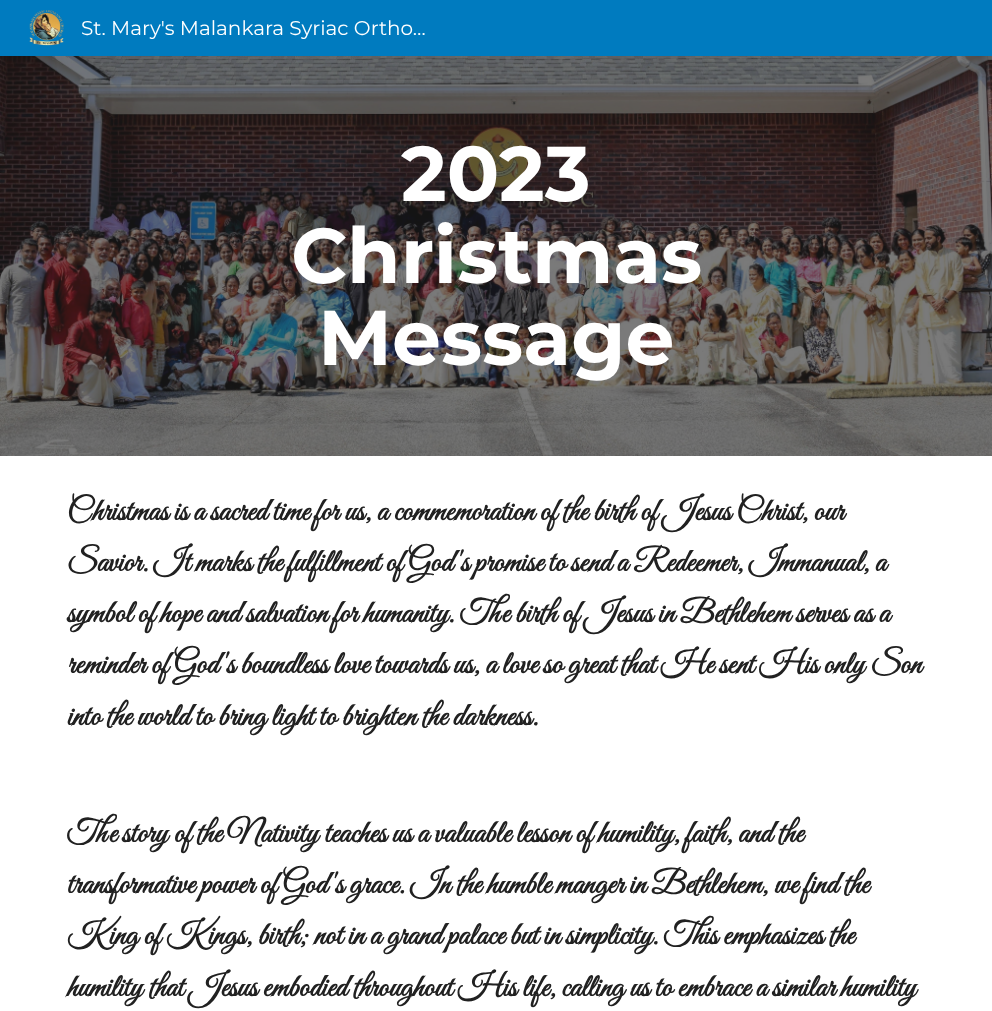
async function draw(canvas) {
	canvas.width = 992;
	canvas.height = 1011;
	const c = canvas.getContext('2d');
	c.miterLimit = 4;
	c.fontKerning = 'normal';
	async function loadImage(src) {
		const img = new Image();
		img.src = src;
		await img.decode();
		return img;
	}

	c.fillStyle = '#fff';
	c.fillRect(0, 0, 992, 1011);
	c.fillStyle = '#007bbf';
	c.fillRect(0, 0, 992, 56);
	c.drawImage(await loadImage('img1.png'), 29, 10, 35, 36);
	c.font = '20px Montserrat';
	c.fillStyle = '#fff';
	c.fillText('St. Mary\'s Malankara Syriac Ortho…', 81, 35);
	c.drawImage(await loadImage('img2.png'), 0, 56, 992, 400);
	c.font = 'bold 77.5px Montserrat';
	for (const [text, x, y] of [
		['2023', 401, 201],
		['Christmas', 291, 283],
		['Message', 318, 365],
	]) {
		c.fillText(text, x, y);
	}
	c.font = 'bold 32px Great Vibes';
	c.fillStyle = '#212121';
	c.fillText('Christmas is a sacred time for us, a commemoration of the birth of Jesus Christ, our', 67, 520);
	c.wordSpacing = '-0.2px';
	c.fillText('Savior. It marks the fulfillment of God\'s promise to send a Redeemer, Immanual, a', 67, 571);
	c.wordSpacing = '0px';
	c.fillText('symbol of hope and salvation for humanity. The birth of Jesus in Bethlehem serves as a', 67, 622);
	c.wordSpacing = '-0.1px';
	c.fillText('reminder of God\'s boundless love towards us, a love so great that He sent His only Son', 67, 673);
	c.wordSpacing = '0px';
	for (const [text, x, y] of [
		['into the world to bring light to brighten the darkness.', 67, 725],
		['The story of the Nativity teaches us a valuable lesson of humility, faith, and the', 67, 842],
		['transformative power of God\'s grace. In the humble manger in Bethlehem, we find the', 67, 893],
		['King of Kings, birth; not in a grand palace but in simplicity. This emphasizes the', 67, 944],
		['humility that Jesus embodied throughout His life, calling us to embrace a similar humility', 67, 996],
	]) {
		c.fillText(text, x, y);
	}
}

draw(document.querySelector('canvas'));
